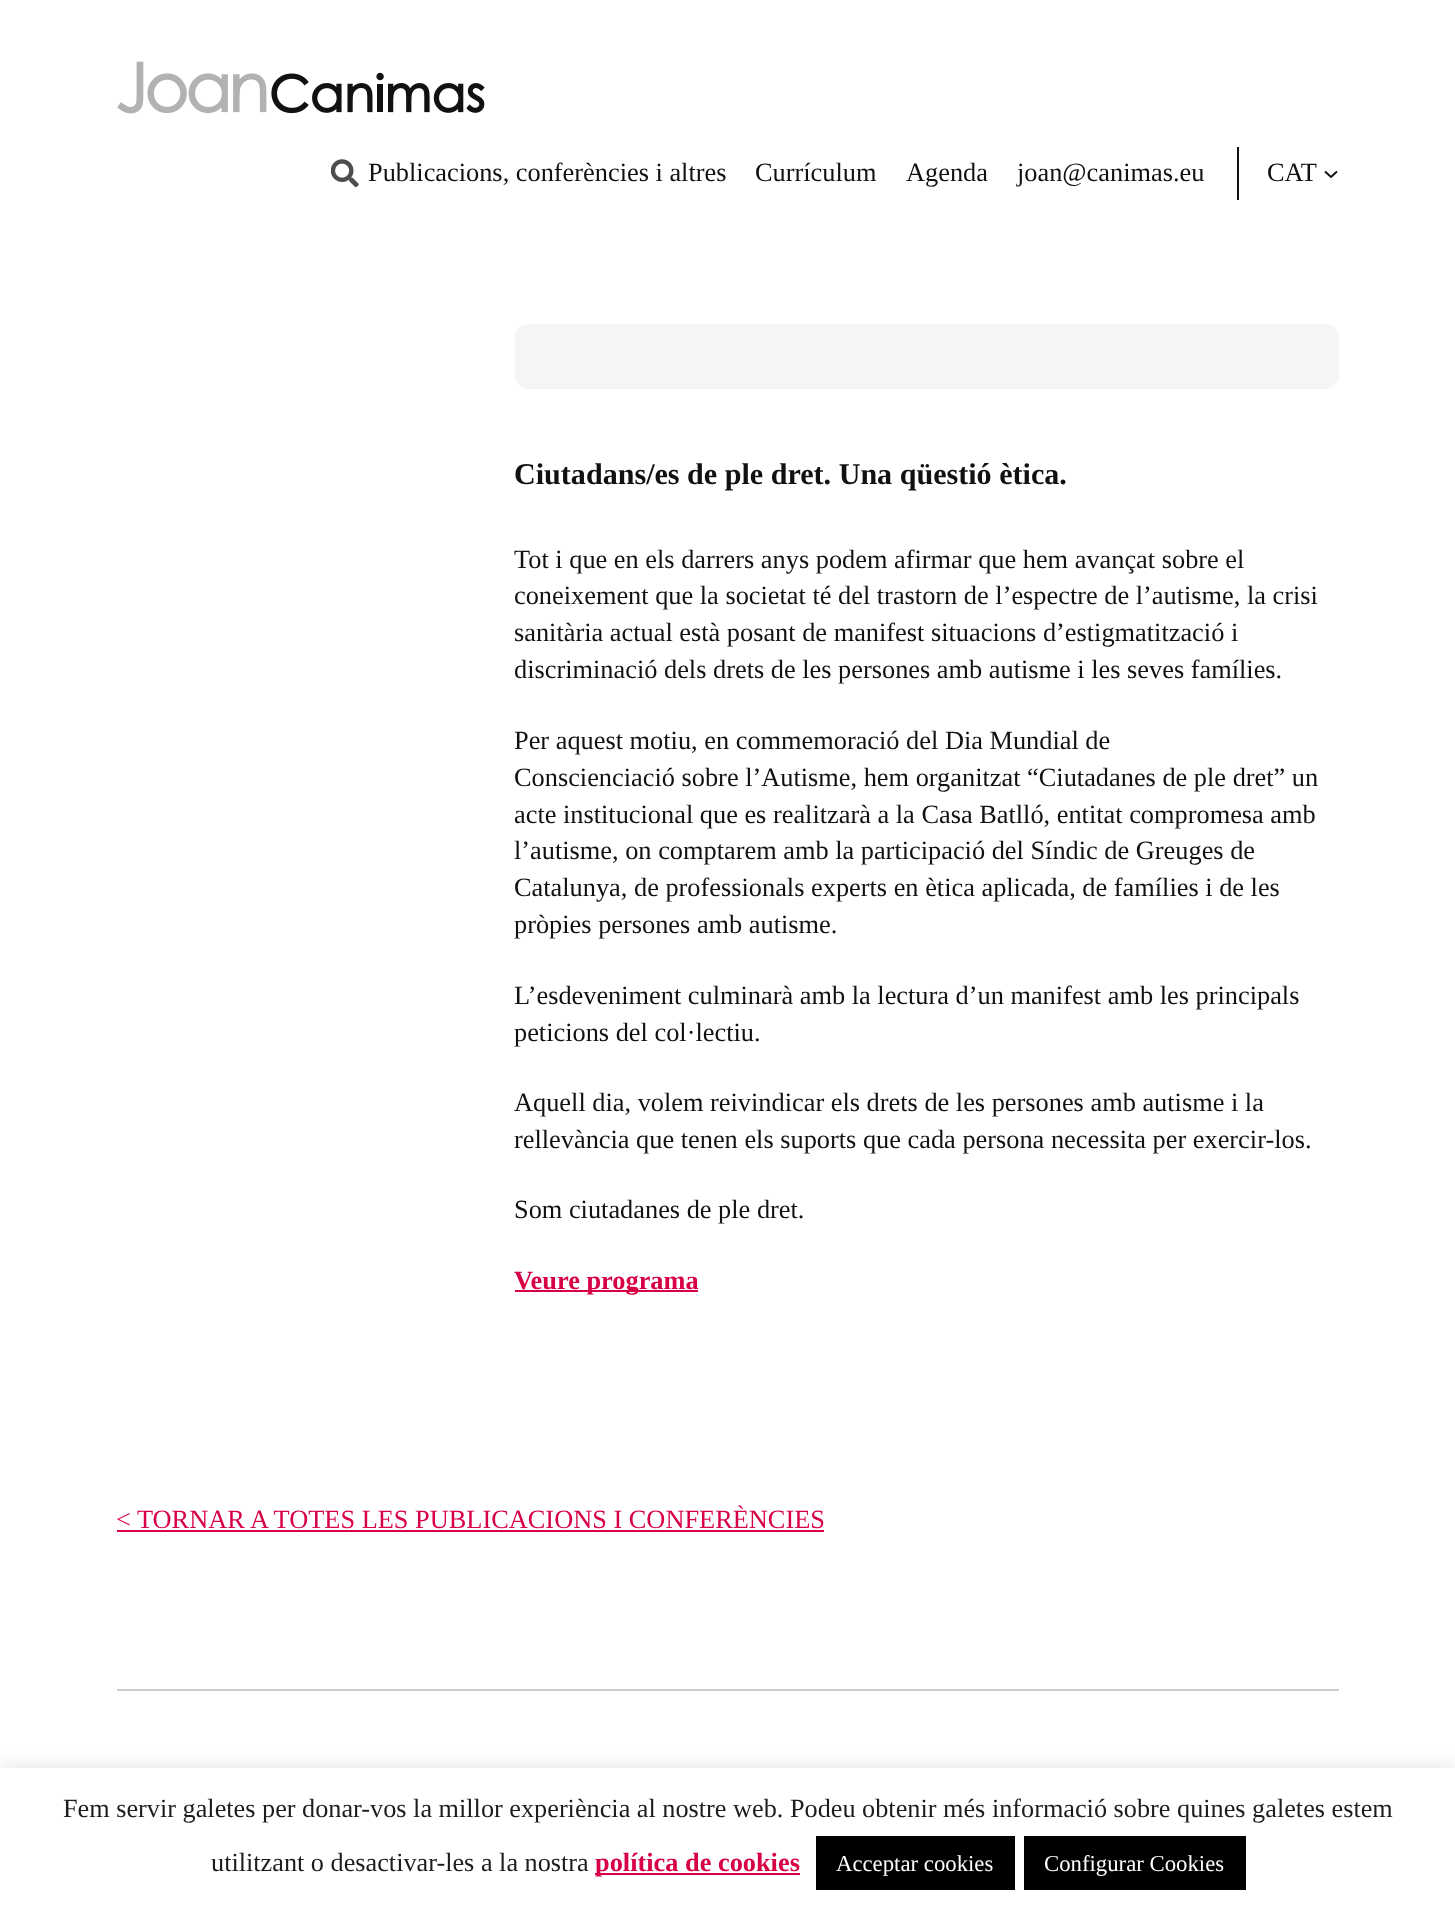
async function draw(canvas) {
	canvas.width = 1455;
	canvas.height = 1910;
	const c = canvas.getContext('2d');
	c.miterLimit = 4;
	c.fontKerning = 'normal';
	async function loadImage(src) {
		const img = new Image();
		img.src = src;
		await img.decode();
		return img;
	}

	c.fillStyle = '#fff';
	c.fillRect(0, 0, 1455, 1910);
	c.drawImage(await loadImage('img1.png'), 117, 61, 368, 53);
	c.drawImage(await loadImage('img2.png'), 331, 159, 28, 28);
	c.font = '26.35px Liberation Serif';
	c.fillStyle = '#111';
	for (const [text, x, y] of [
		['Publicacions, conferències i altres', 368, 181],
		['Currículum', 755, 181],
		['Agenda', 906, 181],
		['joan@canimas.eu', 1017, 181],
	]) {
		c.fillText(text, x, y);
	}
	c.fillRect(1237, 147, 2, 53);
	c.fillText('CAT', 1267, 181);
	c.beginPath();
	c.moveTo(1325, 171.5);
	c.lineTo(1331, 177);
	c.lineTo(1337, 171.5);
	c.strokeStyle = '#111';
	c.lineWidth = 2;
	c.stroke();
	c.fillStyle = '#f5f5f5';
	c.beginPath();
	c.roundRect(515, 324, 824, 65, 14);
	c.fill();
	c.font = 'bold 30.1px Liberation Serif';
	c.fillStyle = '#111';
	c.fillText('Ciutadans/es de ple dret. Una qüestió ètica.', 514, 484);
	c.font = '26.35px Liberation Serif';
	for (const [text, x, y] of [
		['Tot i que en els darrers anys podem afirmar que hem avançat sobre el', 514, 568],
		['coneixement que la societat té del trastorn de l’espectre de l’autisme, la crisi', 514, 604],
		['sanitària actual està posant de manifest situacions d’estigmatització i', 514, 641],
		['discriminació dels drets de les persones amb autisme i les seves famílies.', 514, 678],
		['Per aquest motiu, en commemoració del Dia Mundial de', 514, 749],
		['Conscienciació sobre l’Autisme, hem organitzat “Ciutadanes de ple dret” un', 514, 786],
		['acte institucional que es realitzarà a la Casa Batlló, entitat compromesa amb', 514, 823],
		['l’autisme, on comptarem amb la participació del Síndic de Greuges de', 514, 859],
		['Catalunya, de professionals experts en ètica aplicada, de famílies i de les', 514, 896],
		['pròpies persones amb autisme.', 514, 933],
		['L’esdeveniment culminarà amb la lectura d’un manifest amb les principals', 514, 1004],
		['peticions del col·lectiu.', 514, 1041],
		['Aquell dia, volem reivindicar els drets de les persones amb autisme i la', 514, 1111],
		['rellevància que tenen els suports que cada persona necessita per exercir-los.', 514, 1148],
		['Som ciutadanes de ple dret.', 514, 1218],
	]) {
		c.fillText(text, x, y);
	}
	c.fillStyle = '#d80044';
	c.fillRect(515, 1290, 183, 2);
	c.font = 'bold 26.35px Liberation Serif';
	c.fillText('Veure programa', 514, 1289);
	c.font = '26.35px Liberation Serif';
	c.fillText('< TORNAR A TOTES LES PUBLICACIONS I CONFERÈNCIES', 116, 1528);
	c.fillRect(117, 1530, 707, 2);
	c.fillStyle = '#ccc';
	c.fillRect(117, 1689, 1222, 2);
	c.fillStyle = '#acabab4d';
	c.filter = 'blur(9px)';
	c.beginPath();
	c.rect(0, 1766, 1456, 143);
	c.fill();
	c.filter = 'none';
	c.fillStyle = '#fff';
	c.fillRect(0, 1768, 1455, 142);
	c.font = '26.25px Liberation Serif';
	c.fillStyle = '#1d1d1d';
	c.fillText('Fem servir galetes per donar-vos la millor experiència al nostre web. Podeu obtenir més informació sobre quines galetes estem', 63, 1817);
	c.fillText('utilitzant o desactivar-les a la nostra', 211, 1871);
	c.fillStyle = '#d80044';
	c.fillRect(595, 1873, 205, 2);
	c.font = 'bold 26.35px Liberation Serif';
	c.fillText('política de cookies', 595, 1871);
	c.fillStyle = '#000';
	c.fillRect(816, 1836, 199, 54);
	c.font = '22.75px Liberation Serif';
	c.fillStyle = '#fff';
	c.fillText('Acceptar cookies', 836, 1871);
	c.fillStyle = '#000';
	c.fillRect(1024, 1836, 222, 54);
	c.fillStyle = '#fff';
	c.fillText('Configurar Cookies', 1044, 1871);
}

draw(document.querySelector('canvas'));
